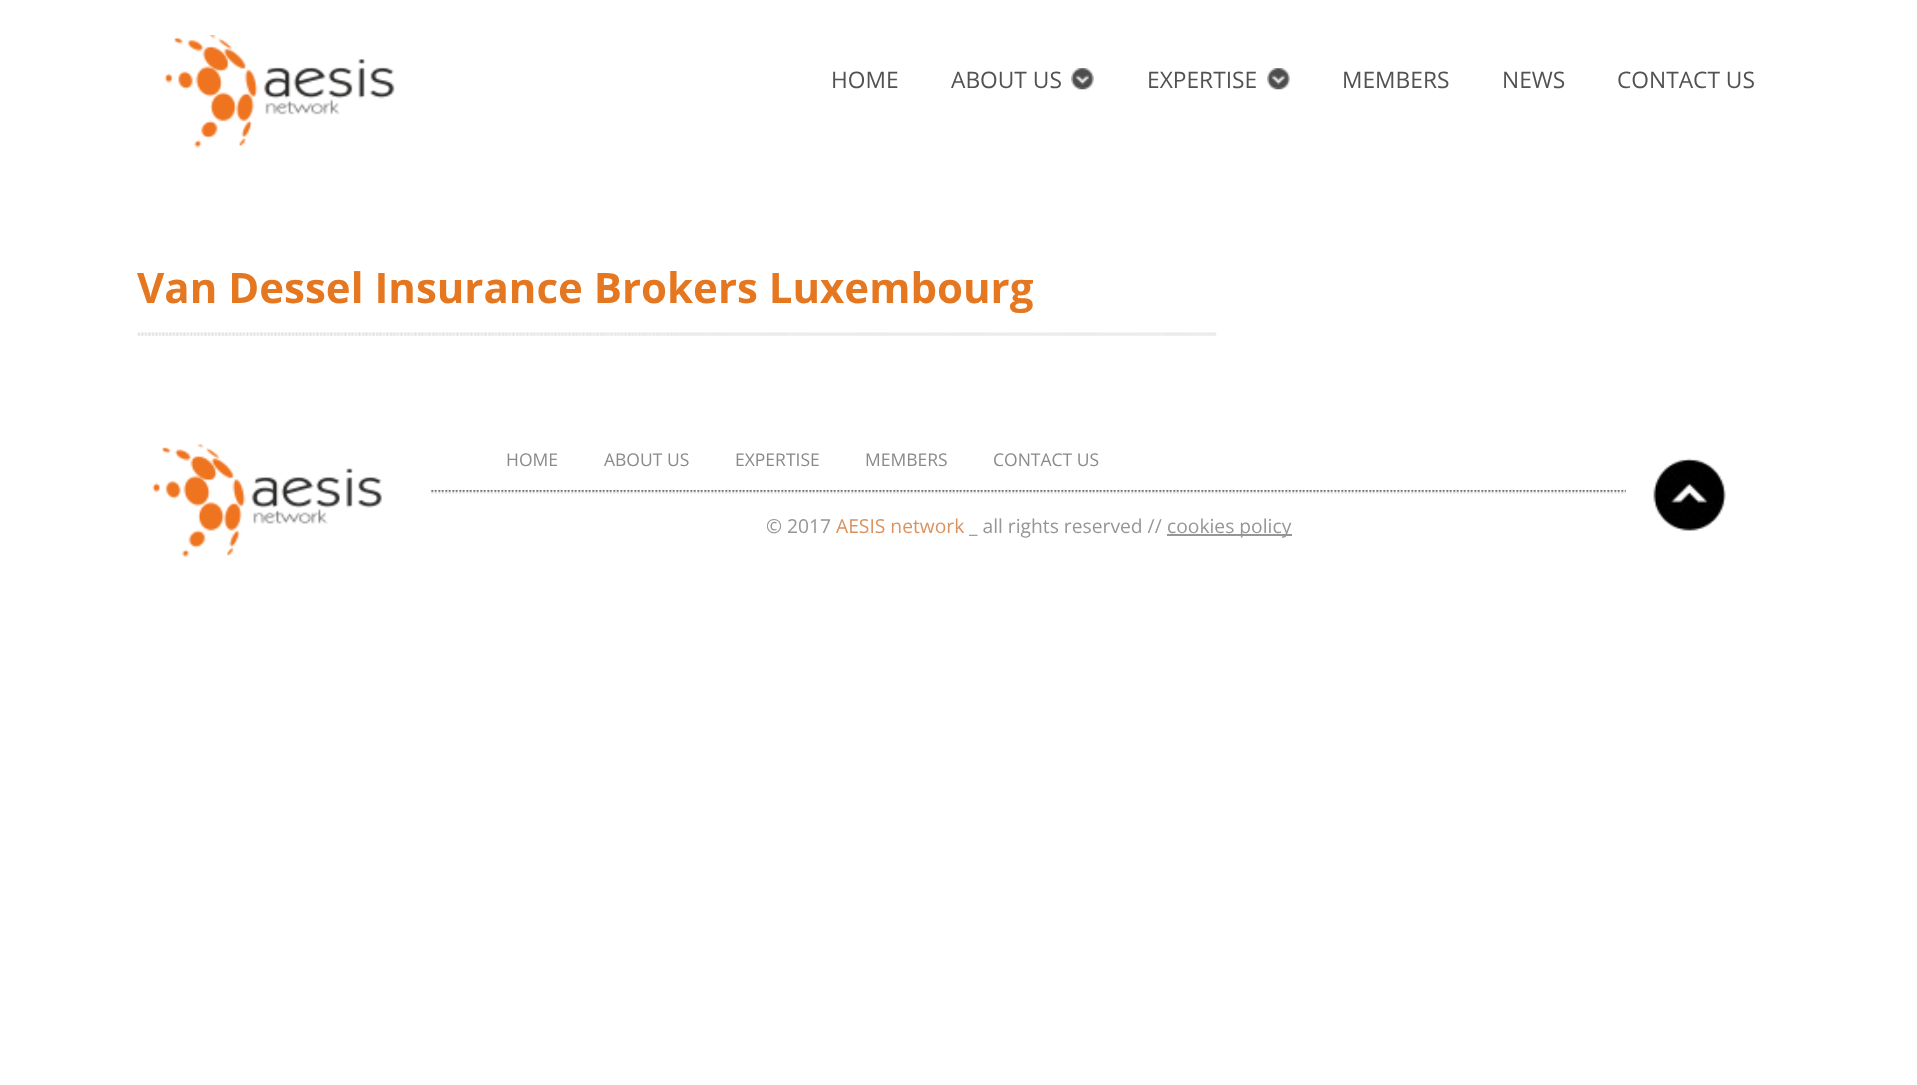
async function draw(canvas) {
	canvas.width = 1917;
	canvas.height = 1085;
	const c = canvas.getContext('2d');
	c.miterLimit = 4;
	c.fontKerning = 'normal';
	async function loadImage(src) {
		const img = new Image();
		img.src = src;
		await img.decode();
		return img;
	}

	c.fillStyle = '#fff';
	c.fillRect(0, 0, 1917, 1085);
	c.drawImage(await loadImage('img1.png'), 164, 35, 231, 113);
	c.font = '22.75px Open Sans';
	c.fillStyle = '#525252';
	c.fillText('HOME', 831, 88);
	c.fillText('ABOUT US', 951, 88);
	c.drawImage(await loadImage('img2.png'), 1071, 68, 23, 22);
	c.fillText('EXPERTISE', 1147, 88);
	c.drawImage(await loadImage('img3.png'), 1267, 68, 23, 22);
	for (const [text, x, y] of [
		['MEMBERS', 1342, 88],
		['NEWS', 1502, 88],
		['CONTACT US', 1617, 88],
	]) {
		c.fillText(text, x, y);
	}
	c.drawImage(await loadImage('img4.png'), 137, 332, 1080, 4);
	c.font = 'bold 42px Open Sans';
	c.fillStyle = '#e57720';
	c.fillText('Van Dessel Insurance Brokers Luxembourg', 137, 303);
	c.drawImage(await loadImage('img5.png'), 152, 444, 230, 113);
	c.drawImage(await loadImage('img6.png'), 431, 490, 1195, 4);
	c.font = '17.5px Open Sans';
	c.fillStyle = '#8b898a';
	for (const [text, x, y] of [
		['HOME', 506, 466],
		['ABOUT US', 604, 466],
		['EXPERTISE', 735, 466],
		['MEMBERS', 865, 466],
		['CONTACT US', 993, 466],
	]) {
		c.fillText(text, x, y);
	}
	c.font = '19.25px Open Sans';
	c.fillStyle = '#969696';
	c.fillText('© 2017', 766, 533);
	c.fillStyle = '#da935f';
	c.fillText('AESIS network', 836, 533);
	c.fillStyle = '#969696';
	c.fillText('_ all rights reserved //', 969, 533);
	c.fillRect(1167, 534, 125, 2);
	c.fillText('cookies policy', 1167, 533);
	c.drawImage(await loadImage('img7.png'), 1653, 458, 73, 73);
}

draw(document.querySelector('canvas'));
